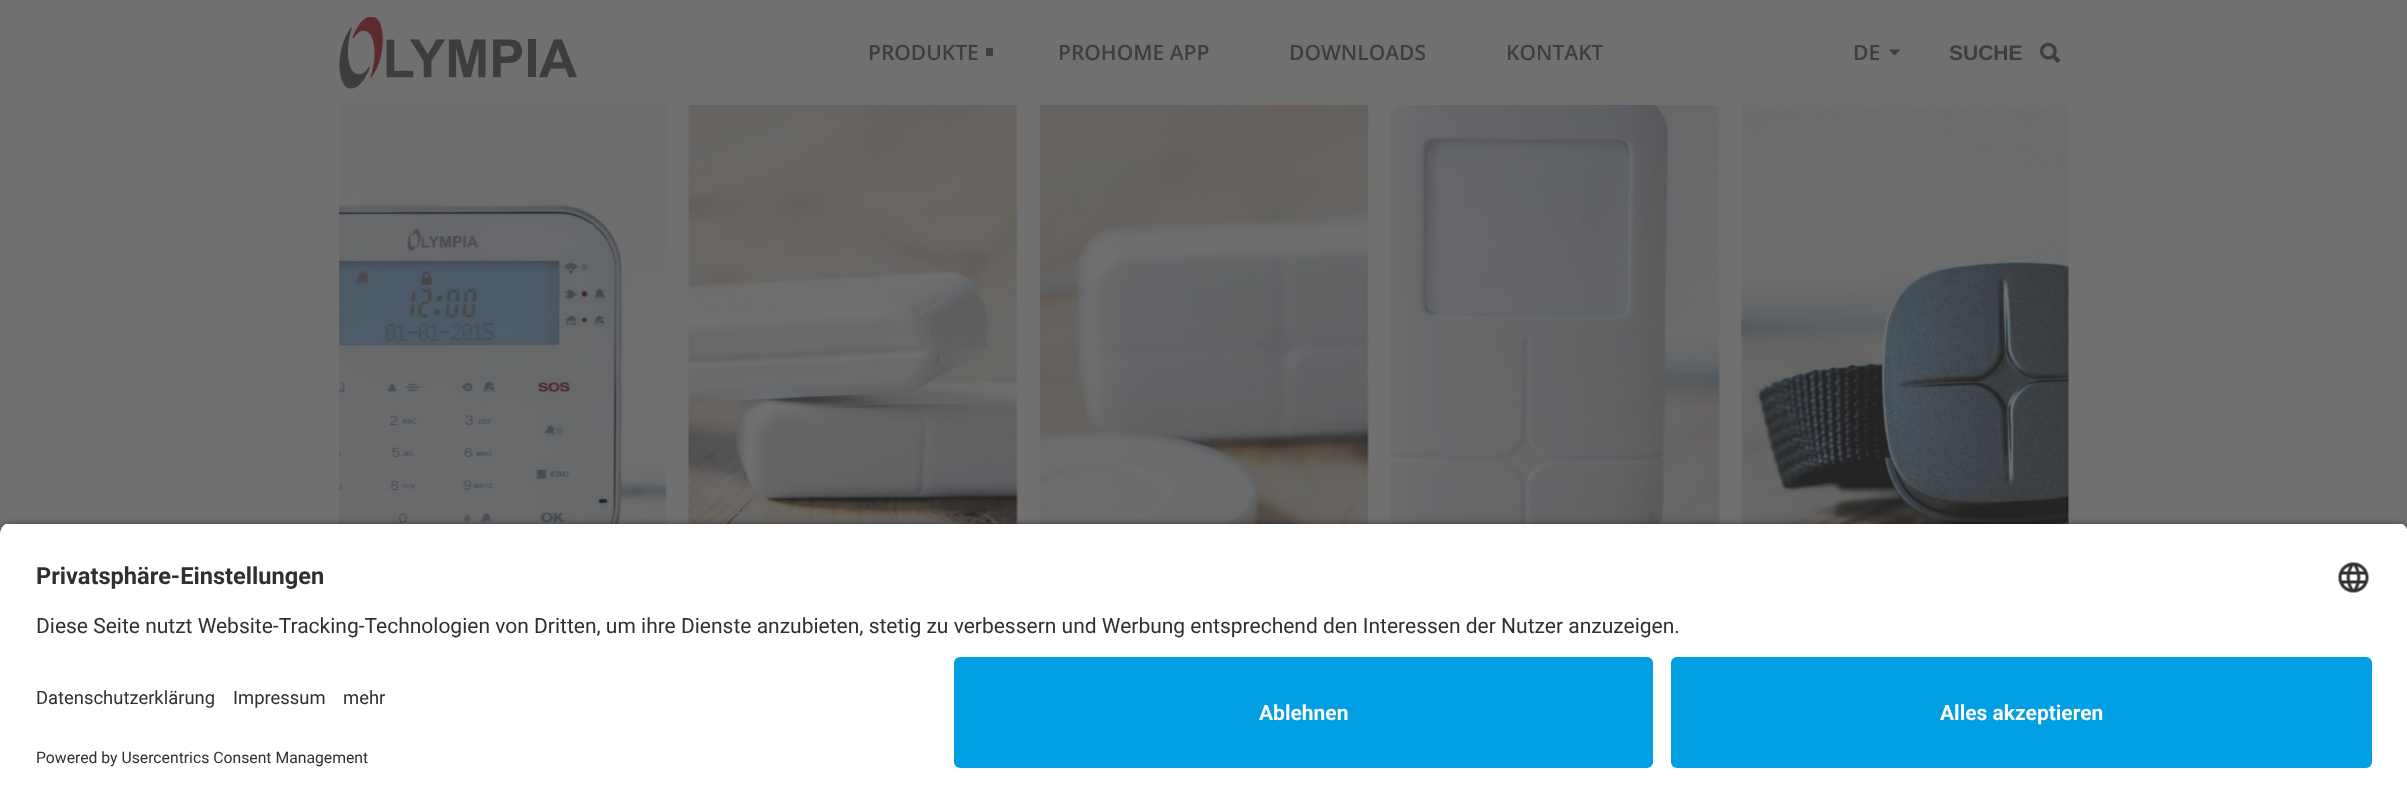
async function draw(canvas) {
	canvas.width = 2407;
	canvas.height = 803;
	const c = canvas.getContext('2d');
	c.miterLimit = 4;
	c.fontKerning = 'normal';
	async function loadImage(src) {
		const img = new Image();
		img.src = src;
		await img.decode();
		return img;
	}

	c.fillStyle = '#707070';
	c.fillRect(0, 0, 2407, 803);
	c.drawImage(await loadImage('img3.png'), 339, 97, 328, 427);
	c.drawImage(await loadImage('img4.png'), 688, 97, 330, 427);
	c.drawImage(await loadImage('img5.png'), 1040, 97, 329, 427);
	c.drawImage(await loadImage('img6.png'), 1390, 97, 330, 427);
	c.drawImage(await loadImage('img7.png'), 1741, 97, 328, 427);
	c.fillStyle = '#707070f5';
	c.fillRect(339, 97, 1729, 8);
	c.drawImage(await loadImage('img1.png'), 339, 17, 238, 72);
	c.font = '600 21px Open Sans';
	c.fillStyle = '#3e3e3e';
	c.fillText('PRODUKTE', 868, 60);
	c.fillRect(986, 48, 7, 8);
	for (const [text, x, y] of [
		['PROHOME APP', 1058, 60],
		['DOWNLOADS', 1289, 60],
		['KONTAKT', 1506, 60],
		['DE', 1853, 60],
	]) {
		c.fillText(text, x, y);
	}
	c.beginPath();
	c.moveTo(1888.5, 49.5);
	c.lineTo(1900.5, 49.5);
	c.lineTo(1894.5, 55.5);
	c.closePath();
	c.fill();
	c.font = 'bold 21px Liberation Sans';
	c.fillText('SUCHE', 1949, 60);
	c.drawImage(await loadImage('img2.png'), 2040, 42, 21, 21);
	c.fillStyle = '#000000cc';
	c.filter = 'blur(5px)';
	c.beginPath();
	c.roundRect(0, 527, 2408, 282, 12);
	c.fill();
	c.filter = 'none';
	c.save();
	c.beginPath();
	c.moveTo(12, 522);
	c.lineTo(2396, 522);
	c.bezierCurveTo(2402.5, 522, 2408, 527.5, 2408, 534);
	c.lineTo(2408, 645);
	c.lineTo(0, 645);
	c.lineTo(0, 534);
	c.bezierCurveTo(0, 527.5, 5.5, 522, 12, 522);
	c.closePath();
	c.clip();
	c.fillStyle = '#fff';
	c.fillRect(0, 524, 2407, 121);
	c.restore();
	c.font = 'bold 23.6px Roboto';
	c.fillStyle = '#303030';
	c.fillText('Privatsphäre-Einstellungen', 36, 584);
	c.drawImage(await loadImage('img8.png'), 2338, 562, 31, 31);
	c.font = '21px Roboto';
	c.fillText('Diese Seite nutzt Website-Tracking-Technologien von Dritten, um ihre Dienste anzubieten, stetig zu verbessern und Werbung entsprechend den Interessen der Nutzer anzuzeigen.', 36, 633);
	c.fillStyle = '#fff';
	c.fillRect(0, 645, 2407, 158);
	c.font = '18.4px Roboto';
	c.fillStyle = '#303030';
	for (const [text, x, y] of [
		['Datenschutzerklärung', 36, 704],
		['Impressum', 233, 704],
		['mehr', 343, 704],
	]) {
		c.fillText(text, x, y);
	}
	c.font = '15.75px Roboto';
	c.fillText('Powered by Usercentrics Consent Management', 36, 763);
	c.fillStyle = '#009ee3';
	c.beginPath();
	c.roundRect(954, 657, 699, 111, 6);
	c.fill();
	c.font = 'bold 21px Roboto';
	c.fillStyle = '#fafafa';
	c.fillText('Ablehnen', 1259, 720);
	c.fillStyle = '#009ee3';
	c.beginPath();
	c.roundRect(1671, 657, 701, 111, 6);
	c.fill();
	c.fillStyle = '#fafafa';
	c.fillText('Alles akzeptieren', 1940, 720);
}

draw(document.querySelector('canvas'));
